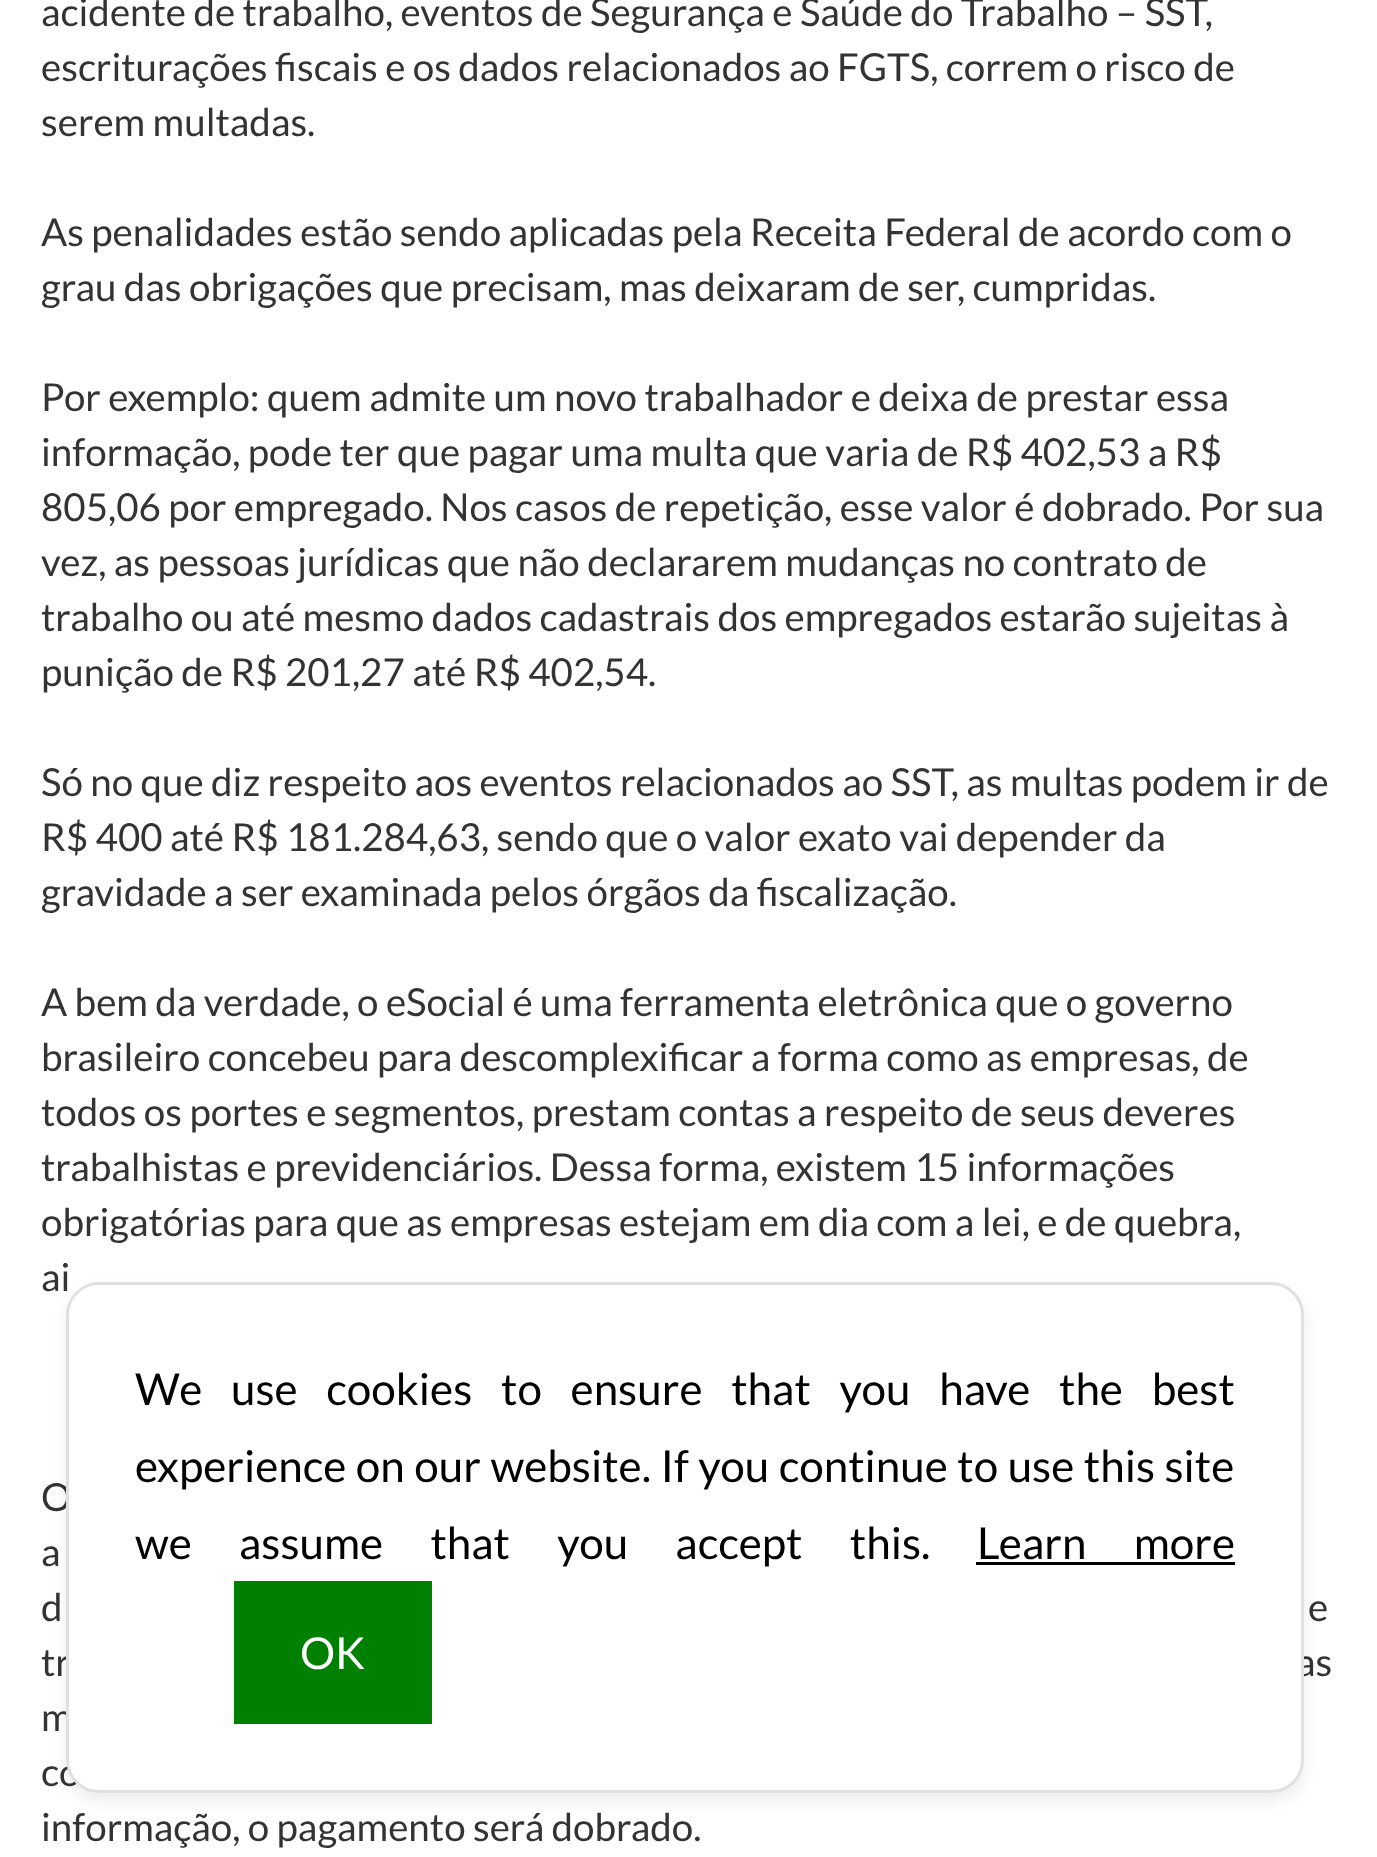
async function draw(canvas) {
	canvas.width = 1377;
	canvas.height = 1857;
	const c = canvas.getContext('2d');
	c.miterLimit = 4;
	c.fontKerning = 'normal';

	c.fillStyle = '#fff';
	c.fillRect(0, 0, 1377, 1857);
	c.font = '38.5px Lato';
	c.fillStyle = '#333';
	for (const [text, x, y] of [
		['acidente de trabalho, eventos de Segurança e Saúde do Trabalho – SST,', 41, 26],
		['escriturações fiscais e os dados relacionados ao FGTS, correm o risco de', 41, 81],
		['serem multadas.', 41, 136],
		['As penalidades estão sendo aplicadas pela Receita Federal de acordo com o', 41, 246],
		['grau das obrigações que precisam, mas deixaram de ser, cumpridas.', 41, 301],
		['Por exemplo: quem admite um novo trabalhador e deixa de prestar essa', 41, 411],
		['informação, pode ter que pagar uma multa que varia de R$ 402,53 a R$', 41, 466],
		['805,06 por empregado. Nos casos de repetição, esse valor é dobrado. Por sua', 41, 521],
		['vez, as pessoas jurídicas que não declararem mudanças no contrato de', 41, 576],
		['trabalho ou até mesmo dados cadastrais dos empregados estarão sujeitas à', 41, 631],
		['punição de R$ 201,27 até R$ 402,54.', 41, 686],
		['Só no que diz respeito aos eventos relacionados ao SST, as multas podem ir de', 41, 796],
		['R$ 400 até R$ 181.284,63, sendo que o valor exato vai depender da', 41, 851],
		['gravidade a ser examinada pelos órgãos da fiscalização.', 41, 906],
		['A bem da verdade, o eSocial é uma ferramenta eletrônica que o governo', 41, 1016],
		['brasileiro concebeu para descomplexificar a forma como as empresas, de', 41, 1071],
		['todos os portes e segmentos, prestam contas a respeito de seus deveres', 41, 1126],
		['trabalhistas e previdenciários. Dessa forma, existem 15 informações', 41, 1181],
		['obrigatórias para que as empresas estejam em dia com a lei, e de quebra,', 41, 1236],
		['ai', 41, 1291],
		['O', 41, 1511],
		['a', 41, 1566],
		['d', 41, 1621],
		['e', 1308, 1621],
		['tr', 41, 1676],
		['as', 1296, 1676],
		['m', 41, 1731],
		['co', 41, 1786],
		['informação, o pagamento será dobrado.', 41, 1841],
	]) {
		c.fillText(text, x, y);
	}
	c.fillStyle = '#00000012';
	c.filter = 'blur(8px)';
	c.beginPath();
	c.roundRect(66, 1290, 1238, 511, 33);
	c.fill();
	c.filter = 'none';
	c.fillStyle = '#fff';
	c.beginPath();
	c.roundRect(66, 1282, 1238, 511, 33);
	c.fill();
	c.beginPath();
	c.roundRect(67.5, 1283.5, 1235, 508, 31.5);
	c.strokeStyle = '#0000001f';
	c.lineWidth = 3;
	c.stroke();
	c.wordSpacing = '20.25px';
	c.font = '44px Lato';
	c.fillStyle = '#000';
	c.fillText('We use cookies to ensure that you have the best', 135, 1405);
	c.wordSpacing = '1px';
	c.fillText('experience on our website. If you continue to use this site', 135, 1482);
	c.wordSpacing = '38.75px';
	c.fillText('we assume that you accept this.', 135, 1559);
	c.fillText('Learn more', 977, 1559);
	c.fillRect(976, 1562, 259, 3);
	c.fillStyle = '#008000';
	c.fillRect(234, 1581, 198, 143);
	c.wordSpacing = '0px';
	c.fillStyle = '#fff';
	c.fillText('OK', 300, 1669);
}

draw(document.querySelector('canvas'));
